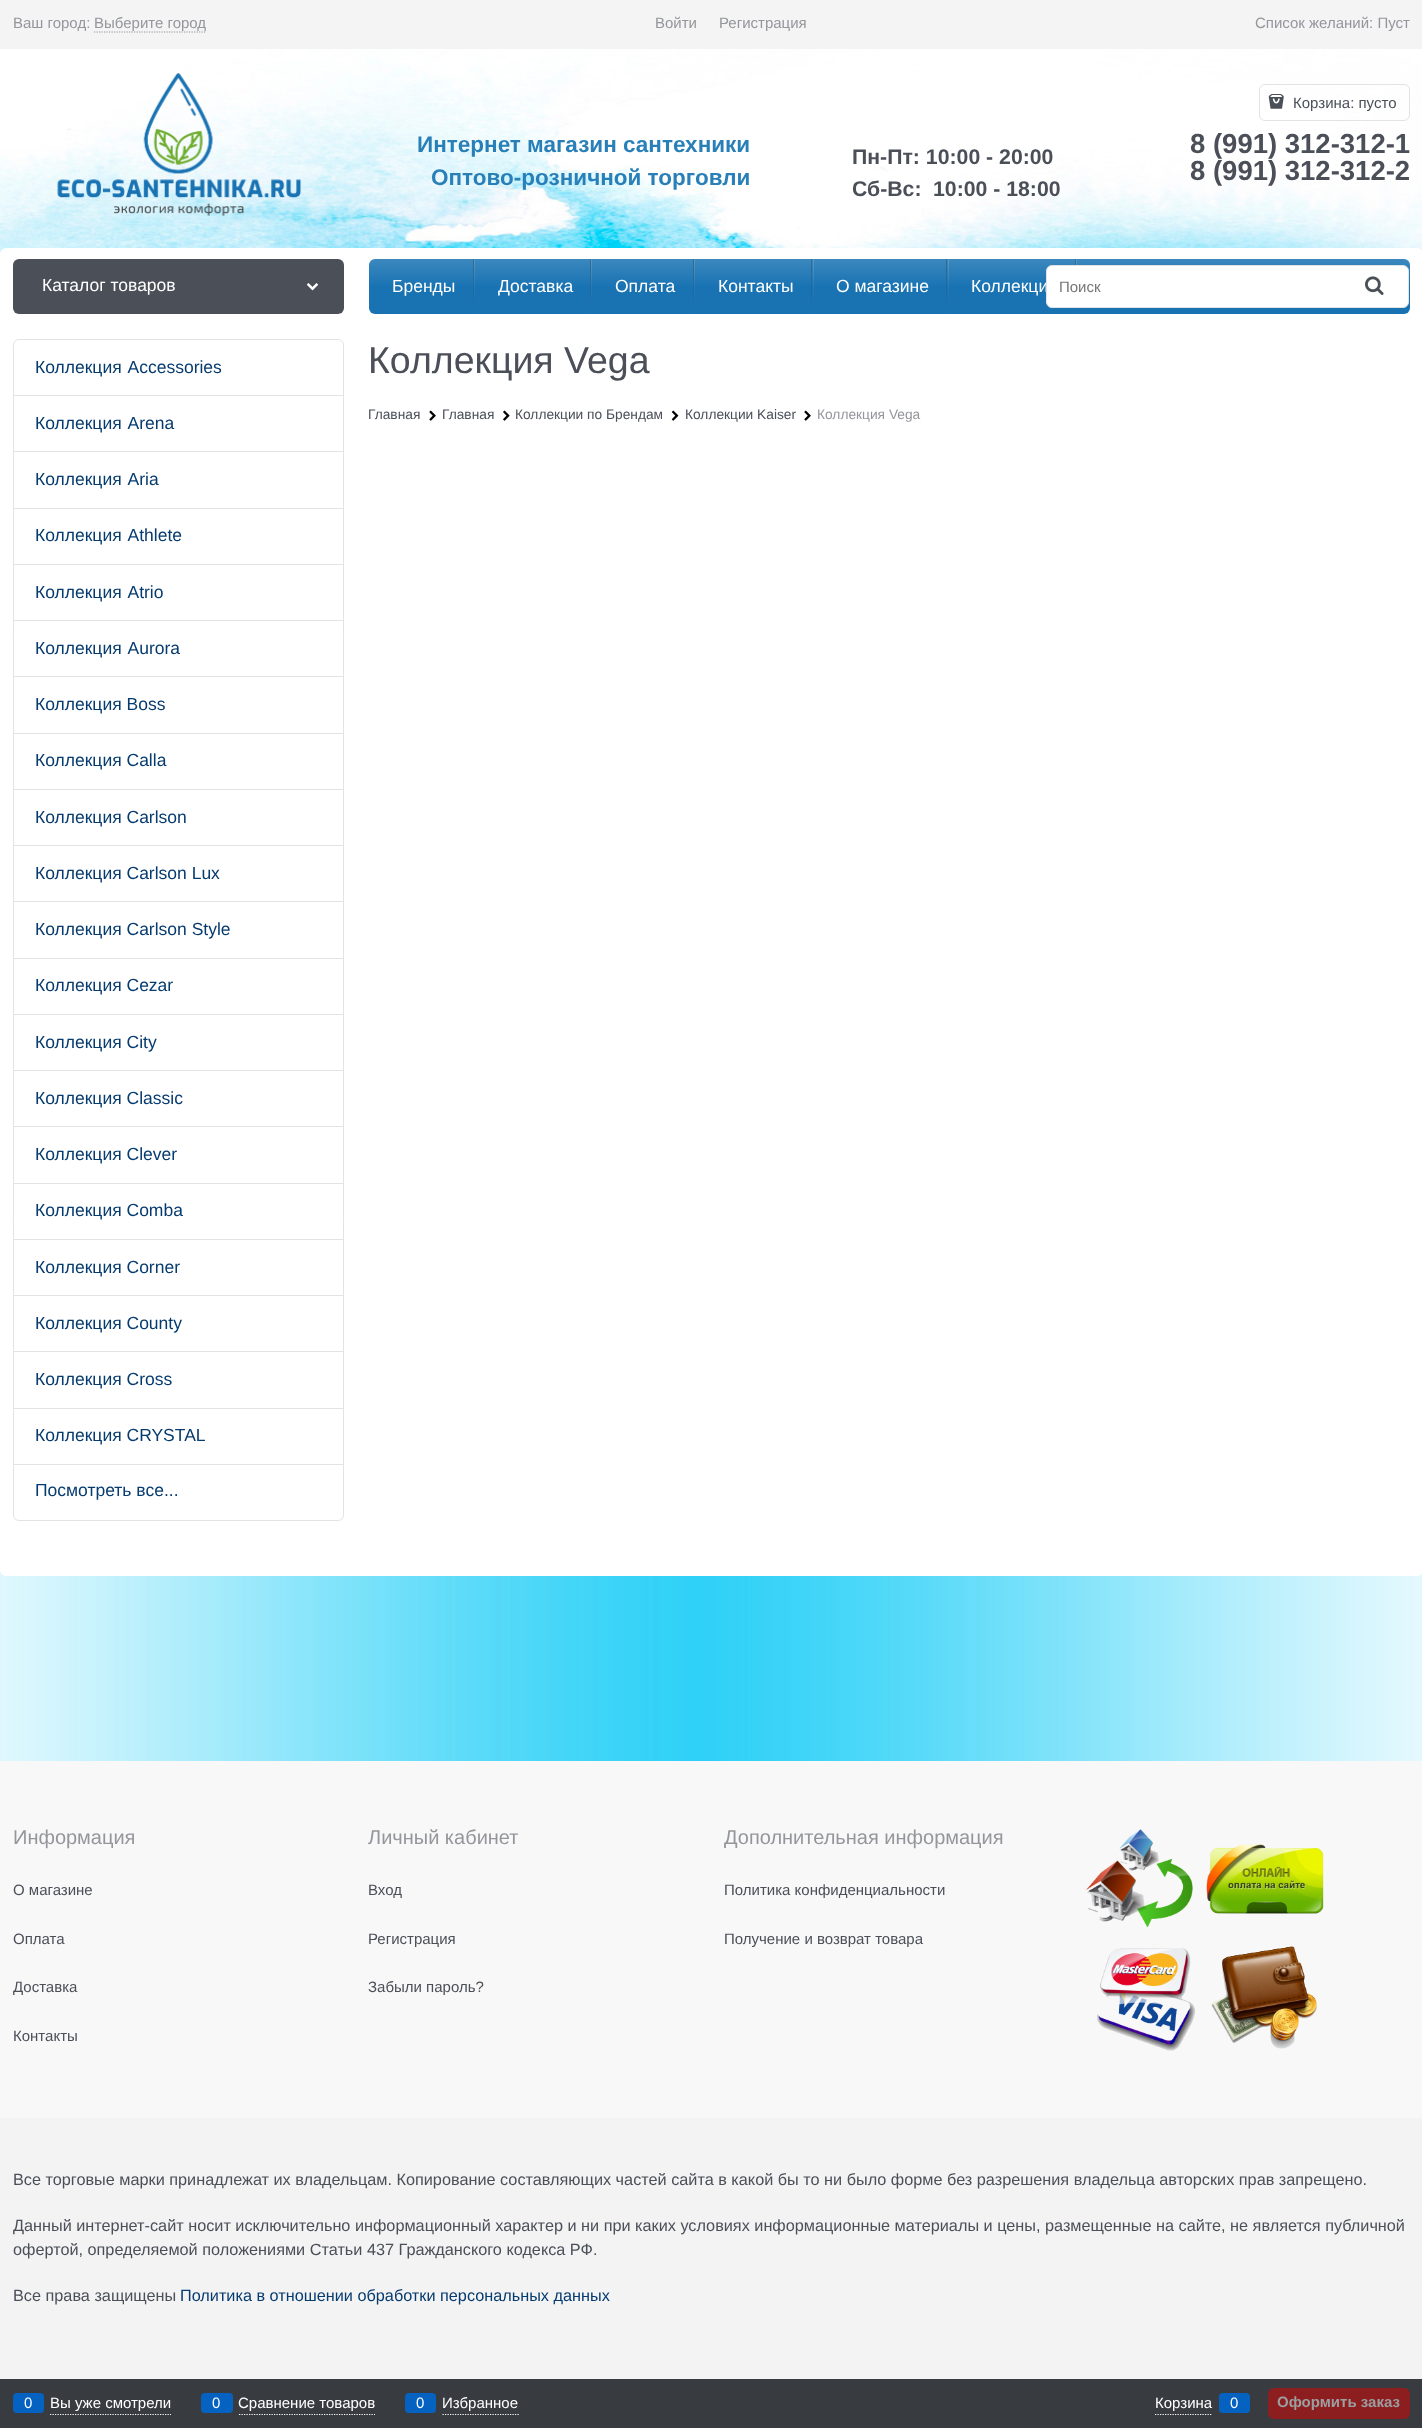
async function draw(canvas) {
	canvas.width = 1422;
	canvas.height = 2428;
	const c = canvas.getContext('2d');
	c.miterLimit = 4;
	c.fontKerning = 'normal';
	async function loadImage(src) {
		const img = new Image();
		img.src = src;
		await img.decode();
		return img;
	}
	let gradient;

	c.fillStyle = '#fff';
	c.fillRect(0, 0, 1422, 2428);
	c.drawImage(await loadImage('img1.png'), 0, 1570, 1422, 191);
	c.drawImage(await loadImage('img2.png'), 0, 0, 1422, 254);
	c.fillStyle = '#f3f3f3e6';
	c.fillRect(0, 0, 1422, 49);
	c.font = '15px Liberation Sans';
	c.fillStyle = '#94969b';
	c.fillText('Ваш город:', 13, 28);
	c.beginPath();
	c.moveTo(94, 32);
	c.lineTo(206, 32);
	c.strokeStyle = '#94969b';
	c.lineWidth = 1.2;
	c.setLineDash([1.25, 1.25]);
	c.stroke();
	for (const [text, x, y] of [
		['Выберите город', 94, 28],
		['Войти', 655, 28],
		['Регистрация', 719, 28],
		['Список желаний: Пуст', 1255, 28],
	]) {
		c.fillText(text, x, y);
	}
	c.drawImage(await loadImage('img3.png'), 57, 73, 245, 143);
	c.font = 'bold 22.5px Liberation Sans';
	c.fillStyle = '#2980b9';
	c.fillText('Интернет магазин сантехники', 417, 152);
	c.fillText('Оптово-розничной торговли', 431, 185);
	c.font = 'bold 21.25px Liberation Sans';
	c.fillStyle = '#4b4f58';
	for (const [text, x, y] of [
		['Пн-Пт: 10:00 - 20:00', 852, 164],
		['Сб-Вc:', 852, 196],
		['10:00 - 18:00', 933, 196],
	]) {
		c.fillText(text, x, y);
	}
	c.beginPath();
	c.roundRect(1259.5, 84.5, 150, 36, 5.5);
	c.strokeStyle = '#e2e3e4';
	c.lineWidth = 1;
	c.setLineDash([]);
	c.stroke();
	c.drawImage(await loadImage('img4.png'), 1268, 94, 16, 15);
	c.font = '15px Liberation Sans';
	c.fillText('Корзина: пусто', 1293, 108);
	c.font = 'bold 27.5px Liberation Sans';
	c.fillText('8 (991) 312-312-1', 1190, 153);
	c.fillText('8 (991) 312-312-2', 1190, 180);
	c.fillStyle = '#fff';
	c.beginPath();
	c.roundRect(0, 248, 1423, 1328, 6);
	c.fill();
	c.fillStyle = '#4b4f58';
	c.beginPath();
	c.roundRect(13, 259, 331, 55, 6);
	c.fill();
	c.font = '17.5px Liberation Sans';
	c.fillStyle = '#fff';
	c.fillText('Каталог товаров', 42, 291);
	c.drawImage(await loadImage('img5.png'), 306, 283, 13, 8);
	gradient = c.createLinearGradient(889, 259, 889, 314);
	gradient.addColorStop(0, '#3b88be');
	gradient.addColorStop(0.5, '#1973b3');
	c.fillStyle = gradient;
	c.beginPath();
	c.roundRect(369, 259, 1041, 55, 6);
	c.fill();
	c.fillStyle = '#fff';
	c.fillText('Бренды', 392, 292);
	gradient = c.createLinearGradient(474, 259, 474, 314);
	gradient.addColorStop(0, '#ffffff24');
	gradient.addColorStop(0.72, '#ffffff05');
	gradient.addColorStop(1, '#ffffff00');
	c.fillStyle = gradient;
	c.fillRect(474, 259, 1, 39);
	gradient = c.createLinearGradient(473, 259, 473, 314);
	gradient.addColorStop(0, '#39393963');
	gradient.addColorStop(0.17, '#39393954');
	gradient.addColorStop(0.61, '#3939391f');
	gradient.addColorStop(0.96, '#39393903');
	gradient.addColorStop(0.98, '#ffffff03');
	gradient.addColorStop(1, '#ffffff00');
	c.fillStyle = gradient;
	c.fillRect(473, 259, 1, 55);
	c.fillStyle = '#fff';
	c.fillText('Доставка', 498, 292);
	gradient = c.createLinearGradient(592, 259, 592, 314);
	gradient.addColorStop(0, '#ffffff24');
	gradient.addColorStop(0.72, '#ffffff05');
	gradient.addColorStop(1, '#ffffff00');
	c.fillStyle = gradient;
	c.fillRect(591, 259, 1, 39);
	gradient = c.createLinearGradient(591, 259, 591, 314);
	gradient.addColorStop(0, '#39393963');
	gradient.addColorStop(0.17, '#39393954');
	gradient.addColorStop(0.61, '#3939391f');
	gradient.addColorStop(0.96, '#39393903');
	gradient.addColorStop(0.98, '#ffffff03');
	gradient.addColorStop(1, '#ffffff00');
	c.fillStyle = gradient;
	c.fillRect(590, 259, 1, 55);
	c.fillStyle = '#fff';
	c.fillText('Оплата', 615, 292);
	gradient = c.createLinearGradient(694, 259, 694, 314);
	gradient.addColorStop(0, '#ffffff24');
	gradient.addColorStop(0.72, '#ffffff05');
	gradient.addColorStop(1, '#ffffff00');
	c.fillStyle = gradient;
	c.fillRect(694, 259, 1, 39);
	gradient = c.createLinearGradient(693, 259, 693, 314);
	gradient.addColorStop(0, '#39393963');
	gradient.addColorStop(0.17, '#39393954');
	gradient.addColorStop(0.61, '#3939391f');
	gradient.addColorStop(0.96, '#39393903');
	gradient.addColorStop(0.98, '#ffffff03');
	gradient.addColorStop(1, '#ffffff00');
	c.fillStyle = gradient;
	c.fillRect(693, 259, 1, 55);
	c.fillStyle = '#fff';
	c.fillText('Контакты', 718, 292);
	gradient = c.createLinearGradient(813, 259, 813, 314);
	gradient.addColorStop(0, '#ffffff24');
	gradient.addColorStop(0.72, '#ffffff05');
	gradient.addColorStop(1, '#ffffff00');
	c.fillStyle = gradient;
	c.fillRect(813, 259, 1, 39);
	gradient = c.createLinearGradient(812, 259, 812, 314);
	gradient.addColorStop(0, '#39393963');
	gradient.addColorStop(0.17, '#39393954');
	gradient.addColorStop(0.61, '#3939391f');
	gradient.addColorStop(0.96, '#39393903');
	gradient.addColorStop(0.98, '#ffffff03');
	gradient.addColorStop(1, '#ffffff00');
	c.fillStyle = gradient;
	c.fillRect(811, 259, 1, 55);
	c.fillStyle = '#fff';
	c.fillText('О магазине', 836, 292);
	gradient = c.createLinearGradient(948, 259, 948, 314);
	gradient.addColorStop(0, '#ffffff24');
	gradient.addColorStop(0.72, '#ffffff05');
	gradient.addColorStop(1, '#ffffff00');
	c.fillStyle = gradient;
	c.fillRect(948, 259, 1, 39);
	gradient = c.createLinearGradient(947, 259, 947, 314);
	gradient.addColorStop(0, '#39393963');
	gradient.addColorStop(0.17, '#39393954');
	gradient.addColorStop(0.61, '#3939391f');
	gradient.addColorStop(0.96, '#39393903');
	gradient.addColorStop(0.98, '#ffffff03');
	gradient.addColorStop(1, '#ffffff00');
	c.fillStyle = gradient;
	c.fillRect(946, 259, 1, 55);
	c.fillStyle = '#fff';
	c.fillText('Коллекци', 971, 292);
	gradient = c.createLinearGradient(1077, 259, 1077, 314);
	gradient.addColorStop(0, '#ffffff24');
	gradient.addColorStop(0.72, '#ffffff05');
	gradient.addColorStop(1, '#ffffff00');
	c.fillStyle = gradient;
	c.fillRect(1076, 259, 1, 6);
	gradient = c.createLinearGradient(1076, 259, 1076, 314);
	gradient.addColorStop(0, '#39393963');
	gradient.addColorStop(0.17, '#39393954');
	gradient.addColorStop(0.61, '#3939391f');
	gradient.addColorStop(0.96, '#39393903');
	gradient.addColorStop(0.98, '#ffffff03');
	gradient.addColorStop(1, '#ffffff00');
	c.fillStyle = gradient;
	c.fillRect(1075, 259, 1, 55);
	c.fillStyle = '#fff';
	c.beginPath();
	c.roundRect(1046.5, 265.5, 362, 42, 5.5);
	c.fill();
	c.stroke();
	c.font = '15px Liberation Sans';
	c.fillStyle = '#757575';
	c.fillText('Поиск', 1059, 292);
	c.drawImage(await loadImage('img6.png'), 1365, 276, 19, 19);
	c.beginPath();
	c.roundRect(13.5, 339.5, 330, 1181, 5.5);
	c.stroke();
	c.fillStyle = '#e2e3e4';
	c.fillRect(14, 395, 329, 1);
	c.fillStyle = '#fff';
	c.beginPath();
	c.roundRect(14, 340, 329, 55, [6, 6, 0, 0]);
	c.fill();
	c.wordSpacing = '1px';
	c.font = '17.5px Liberation Sans';
	c.fillStyle = '#063b6f';
	c.fillText('Коллекция Accessories', 35, 373);
	c.fillStyle = '#e2e3e4';
	c.fillRect(14, 451, 329, 1);
	c.fillStyle = '#063b6f';
	c.fillText('Коллекция Arena', 35, 429);
	c.fillStyle = '#e2e3e4';
	c.fillRect(14, 508, 329, 1);
	c.fillStyle = '#063b6f';
	c.fillText('Коллекция Aria', 35, 485);
	c.fillStyle = '#e2e3e4';
	c.fillRect(14, 564, 329, 1);
	c.fillStyle = '#063b6f';
	c.fillText('Коллекция Athlete', 35, 541);
	c.fillStyle = '#e2e3e4';
	c.fillRect(14, 620, 329, 1);
	c.fillStyle = '#063b6f';
	c.fillText('Коллекция Atrio', 35, 598);
	c.fillStyle = '#e2e3e4';
	c.fillRect(14, 676, 329, 1);
	c.fillStyle = '#063b6f';
	c.fillText('Коллекция Aurora', 35, 654);
	c.fillStyle = '#e2e3e4';
	c.fillRect(14, 733, 329, 1);
	c.wordSpacing = '0px';
	c.fillStyle = '#063b6f';
	c.fillText('Коллекция Boss', 35, 710);
	c.fillStyle = '#e2e3e4';
	c.fillRect(14, 789, 329, 1);
	c.fillStyle = '#063b6f';
	c.fillText('Коллекция Calla', 35, 766);
	c.fillStyle = '#e2e3e4';
	c.fillRect(14, 845, 329, 1);
	c.fillStyle = '#063b6f';
	c.fillText('Коллекция Carlson', 35, 823);
	c.fillStyle = '#e2e3e4';
	c.fillRect(14, 901, 329, 1);
	c.fillStyle = '#063b6f';
	c.fillText('Коллекция Carlson Lux', 35, 879);
	c.fillStyle = '#e2e3e4';
	c.fillRect(14, 958, 329, 1);
	c.fillStyle = '#063b6f';
	c.fillText('Коллекция Carlson Style', 35, 935);
	c.fillStyle = '#e2e3e4';
	c.fillRect(14, 1014, 329, 1);
	c.fillStyle = '#063b6f';
	c.fillText('Коллекция Cezar', 35, 991);
	c.fillStyle = '#e2e3e4';
	c.fillRect(14, 1070, 329, 1);
	c.fillStyle = '#063b6f';
	c.fillText('Коллекция City', 35, 1048);
	c.fillStyle = '#e2e3e4';
	c.fillRect(14, 1126, 329, 1);
	c.fillStyle = '#063b6f';
	c.fillText('Коллекция Classic', 35, 1104);
	c.fillStyle = '#e2e3e4';
	c.fillRect(14, 1183, 329, 1);
	c.fillStyle = '#063b6f';
	c.fillText('Коллекция Clever', 35, 1160);
	c.fillStyle = '#e2e3e4';
	c.fillRect(14, 1239, 329, 1);
	c.fillStyle = '#063b6f';
	c.fillText('Коллекция Comba', 35, 1216);
	c.fillStyle = '#e2e3e4';
	c.fillRect(14, 1295, 329, 1);
	c.fillStyle = '#063b6f';
	c.fillText('Коллекция Corner', 35, 1273);
	c.fillStyle = '#e2e3e4';
	c.fillRect(14, 1351, 329, 1);
	c.fillStyle = '#063b6f';
	c.fillText('Коллекция County', 35, 1329);
	c.fillStyle = '#e2e3e4';
	c.fillRect(14, 1408, 329, 1);
	c.fillStyle = '#063b6f';
	c.fillText('Коллекция Cross', 35, 1385);
	c.fillStyle = '#e2e3e4';
	c.fillRect(14, 1464, 329, 1);
	c.fillStyle = '#063b6f';
	c.fillText('Коллекция CRYSTAL', 35, 1441);
	c.fillText('Посмотреть все...', 35, 1496);
	c.font = '37.5px Liberation Sans';
	c.fillStyle = '#4b4f58';
	c.fillText('Коллекция Vega', 368, 373);
	c.font = '13.75px Liberation Sans';
	c.fillText('Главная', 368, 419);
	c.drawImage(await loadImage('img7.png'), 429, 410, 7, 11);
	c.fillText('Главная', 442, 419);
	c.drawImage(await loadImage('img8.png'), 503, 410, 7, 11);
	c.fillText('Коллекции по Брендам', 515, 419);
	c.drawImage(await loadImage('img9.png'), 671, 410, 8, 11);
	c.fillText('Коллекции Kaiser', 685, 419);
	c.drawImage(await loadImage('img7.png'), 804, 410, 7, 11);
	c.fillStyle = '#94969b';
	c.fillText('Коллекция Vega', 817, 419);
	c.fillStyle = '#f8f8f8';
	c.fillRect(0, 1761, 1422, 357);
	c.font = '20px Liberation Sans';
	c.fillStyle = '#94969b';
	c.fillText('Информация', 13, 1844);
	c.font = '15px Liberation Sans';
	c.fillStyle = '#4b4f58';
	for (const [text, x, y] of [
		['О магазине', 13, 1895],
		['Оплата', 13, 1944],
		['Доставка', 13, 1992],
		['Контакты', 13, 2041],
	]) {
		c.fillText(text, x, y);
	}
	c.font = '20px Liberation Sans';
	c.fillStyle = '#94969b';
	c.fillText('Личный кабинет', 368, 1844);
	c.font = '15px Liberation Sans';
	c.fillStyle = '#4b4f58';
	for (const [text, x, y] of [
		['Вход', 368, 1895],
		['Регистрация', 368, 1944],
		['Забыли пароль?', 368, 1992],
	]) {
		c.fillText(text, x, y);
	}
	c.font = '20px Liberation Sans';
	c.fillStyle = '#94969b';
	c.fillText('Дополнительная информация', 724, 1844);
	c.font = '15px Liberation Sans';
	c.fillStyle = '#4b4f58';
	c.fillText('Политика конфиденциальности', 724, 1895);
	c.fillText('Получение и возврат товара', 724, 1944);
	c.drawImage(await loadImage('img10.png'), 1086, 1829, 238, 222);
	c.fillStyle = '#f3f3f3';
	c.fillRect(0, 2118, 1422, 261);
	c.font = '16.25px Liberation Sans';
	c.fillStyle = '#4b4f58';
	for (const [text, x, y] of [
		['Все торговые марки принадлежат их владельцам. Копирование составляющих частей сайта в какой бы то ни было форме без разрешения владельца авторских прав запрещено.', 13, 2185],
		['Данный интернет-сайт носит исключительно информационный характер и ни при каких условиях информационные материалы и цены, размещенные на сайте, не является публичной', 13, 2231],
		['офертой, определяемой положениями Статьи 437 Гражданского кодекса РФ.', 13, 2255],
		['Все права защищены', 13, 2301],
	]) {
		c.fillText(text, x, y);
	}
	c.fillStyle = '#063b6f';
	c.fillText('Политика в отношении обработки персональных данных', 180, 2301);
	c.fillStyle = '#383c40';
	c.fillRect(0, 2379, 1422, 49);
	c.beginPath();
	c.moveTo(50, 2414.5);
	c.lineTo(171, 2414.5);
	c.strokeStyle = '#fff';
	c.lineWidth = 1.2;
	c.setLineDash([1.25, 1.25]);
	c.stroke();
	c.fillStyle = '#0662c1';
	c.beginPath();
	c.roundRect(13, 2393, 31, 20, 4);
	c.fill();
	c.font = '15px Liberation Sans';
	c.fillStyle = '#fff';
	c.fillText('0', 24, 2408);
	c.fillText('Вы уже смотрели', 50, 2408);
	c.beginPath();
	c.moveTo(239, 2414.5);
	c.lineTo(375, 2414.5);
	c.stroke();
	c.fillStyle = '#0662c1';
	c.beginPath();
	c.roundRect(201, 2393, 32, 20, 4);
	c.fill();
	c.fillStyle = '#fff';
	c.fillText('0', 212, 2408);
	c.fillText('Сравнение товаров', 238, 2408);
	c.beginPath();
	c.moveTo(442.5, 2414.5);
	c.lineTo(519, 2414.5);
	c.stroke();
	c.fillStyle = '#0662c1';
	c.beginPath();
	c.roundRect(405, 2393, 31, 20, 4);
	c.fill();
	c.fillStyle = '#fff';
	c.fillText('0', 416, 2408);
	c.fillText('Избранное', 442, 2408);
	c.beginPath();
	c.moveTo(1155, 2414.5);
	c.lineTo(1212.5, 2414.5);
	c.stroke();
	c.fillText('Корзина', 1155, 2408);
	c.fillStyle = '#0662c1';
	c.beginPath();
	c.roundRect(1219, 2393, 31, 20, 4);
	c.fill();
	c.fillStyle = '#fff';
	c.fillText('0', 1230, 2408);
	c.fillStyle = '#8d1e20';
	c.beginPath();
	c.roundRect(1268, 2388, 142, 31, 6);
	c.fill();
	c.font = 'bold 15px Liberation Sans';
	c.fillStyle = '#9c9ea0';
	c.fillText('Оформить заказ', 1277, 2407);
}

draw(document.querySelector('canvas'));
